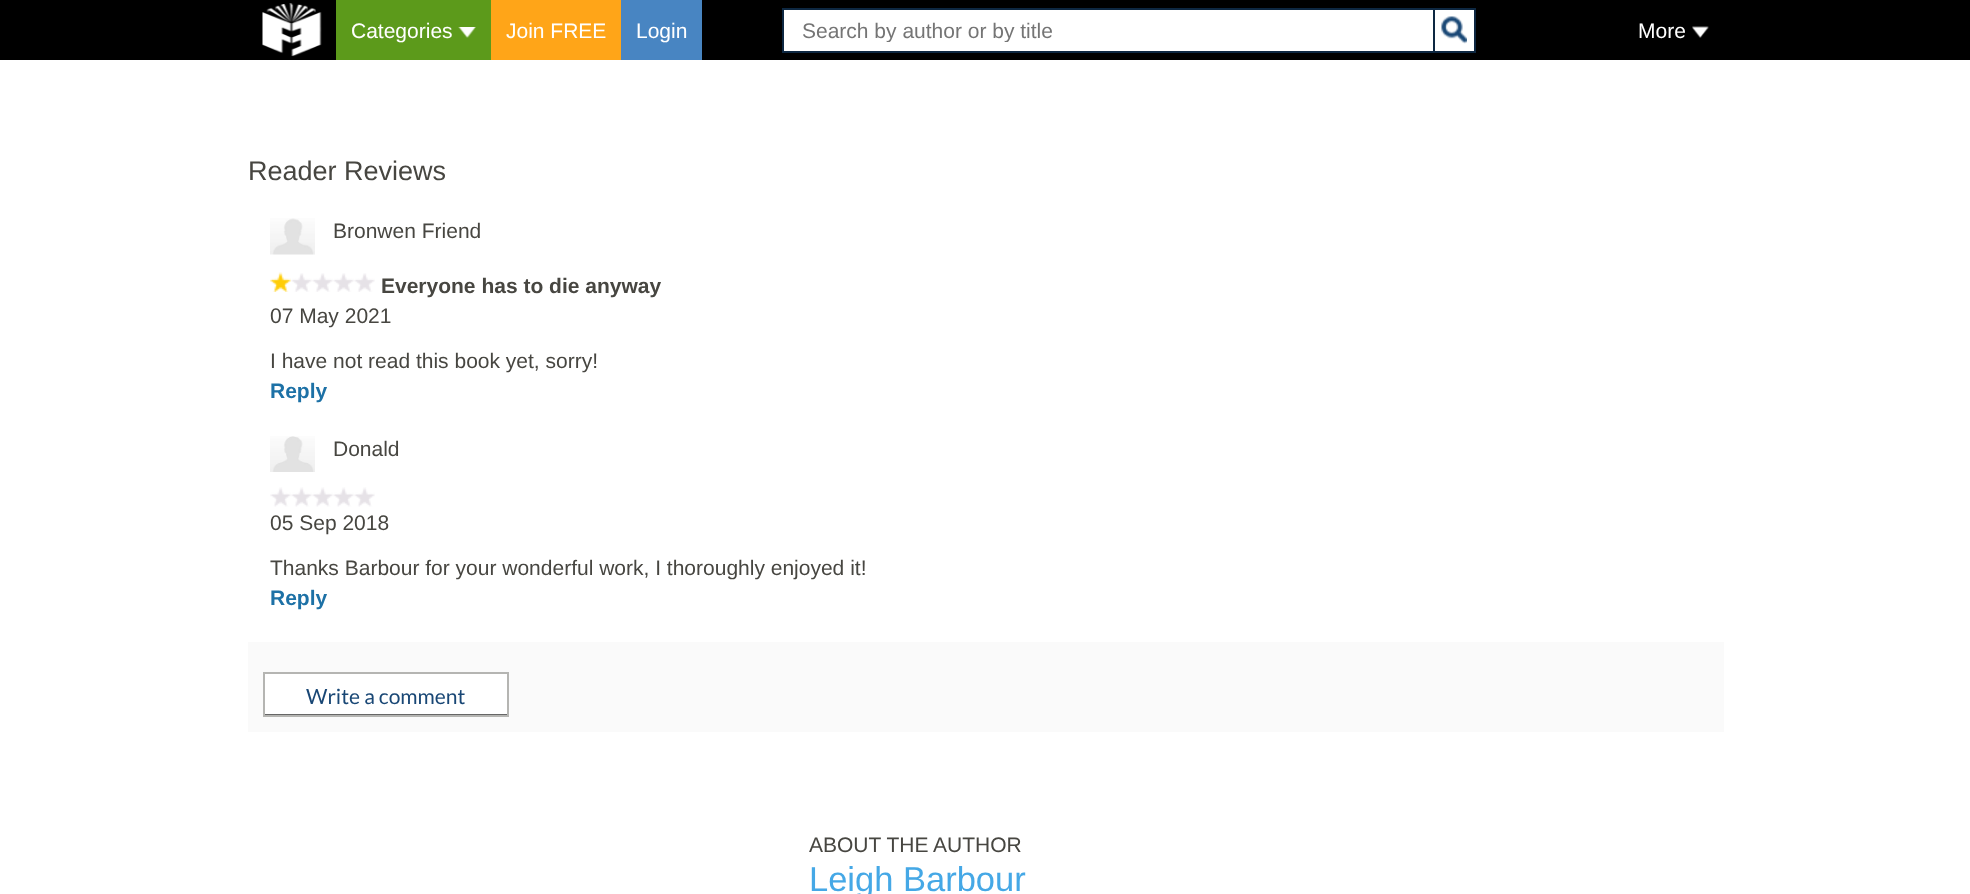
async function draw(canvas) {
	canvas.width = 1970;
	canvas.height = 894;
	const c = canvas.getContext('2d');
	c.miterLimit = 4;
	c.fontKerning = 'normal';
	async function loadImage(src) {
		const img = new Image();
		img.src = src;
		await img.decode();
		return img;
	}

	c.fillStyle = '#fff';
	c.fillRect(0, 0, 1970, 894);
	c.fillStyle = '#000';
	c.fillRect(0, 0, 1970, 60);
	c.drawImage(await loadImage('img1.png'), 262, 3, 60, 54);
	c.fillStyle = '#5c9a1b';
	c.fillRect(336, 0, 155, 60);
	c.font = '21px Liberation Sans';
	c.fillStyle = '#fff';
	c.fillText('Categories', 351, 38);
	c.drawImage(await loadImage('img2.png'), 458, 27, 18, 11);
	c.fillStyle = '#ffa518';
	c.fillRect(491, 0, 130, 60);
	c.fillStyle = '#fff';
	c.fillText('Join FREE', 506, 38);
	c.fillStyle = '#4885c2';
	c.fillRect(621, 0, 81, 60);
	c.fillStyle = '#fff';
	c.fillText('Login', 636, 38);
	for (const [x, y, w, h, color] of [
		[784, 10, 649, 41, '#fff'],
		[782, 8, 651, 2, '#0d2741'],
		[782, 51, 651, 2, '#0d2741'],
		[782, 8, 2, 45, '#0d2741'],
	]) {
		c.fillStyle = color;
		c.fillRect(x, y, w, h);
	}
	c.save();
	c.beginPath();
	c.rect(803, 18, 610, 24);
	c.clip();
	c.fillStyle = '#757575';
	c.fillText('Search by author or by title', 802, 38);
	c.restore();
	c.fillStyle = '#fff';
	c.beginPath();
	c.rect(1434, 9, 41, 43);
	c.fill();
	c.strokeStyle = '#0d2741';
	c.lineWidth = 2;
	c.stroke();
	c.drawImage(await loadImage('img3.png'), 1441, 16, 26, 28);
	c.fillText('More', 1638, 38);
	c.drawImage(await loadImage('img4.png'), 1692, 26, 17, 12);
	c.font = '27px Liberation Sans';
	c.fillStyle = '#474641';
	c.fillText('Reader Reviews', 248, 180);
	c.drawImage(await loadImage('img5.png'), 270, 218, 45, 37);
	c.font = '21px Liberation Sans';
	c.fillText('Bronwen Friend', 333, 238);
	c.drawImage(await loadImage('img6.png'), 270, 272, 21, 20);
	c.drawImage(await loadImage('img7.png'), 291, 273, 21, 19);
	c.drawImage(await loadImage('img7.png'), 312, 273, 21, 19);
	c.drawImage(await loadImage('img7.png'), 333, 273, 21, 19);
	c.drawImage(await loadImage('img7.png'), 354, 273, 21, 19);
	c.font = 'bold 21px Liberation Sans';
	c.fillText('Everyone has to die anyway', 381, 293);
	c.font = '21px Liberation Sans';
	c.fillText('07 May 2021', 270, 323);
	c.fillText('I have not read this book yet, sorry!', 270, 368);
	c.font = 'bold 21px Liberation Sans';
	c.fillStyle = '#1d71a6';
	c.fillText('Reply', 270, 398);
	c.drawImage(await loadImage('img8.png'), 270, 436, 45, 36);
	c.font = '21px Liberation Sans';
	c.fillStyle = '#474641';
	c.fillText('Donald', 333, 456);
	c.drawImage(await loadImage('img9.png'), 270, 487, 21, 20);
	c.drawImage(await loadImage('img10.png'), 291, 487, 21, 20);
	c.drawImage(await loadImage('img10.png'), 312, 487, 21, 20);
	c.drawImage(await loadImage('img10.png'), 333, 487, 21, 20);
	c.drawImage(await loadImage('img10.png'), 354, 487, 21, 20);
	c.fillText('05 Sep 2018', 270, 530);
	c.fillText('Thanks Barbour for your wonderful work, I thoroughly enjoyed it!', 270, 575);
	c.font = 'bold 21px Liberation Sans';
	c.fillStyle = '#1d71a6';
	c.fillText('Reply', 270, 605);
	for (const [x, y, w, h, color] of [
		[248, 642, 1476, 90, '#fafafa'],
		[265, 674, 242, 40, '#fff'],
		[264, 714, 243, 1, '#666'],
	]) {
		c.fillStyle = color;
		c.fillRect(x, y, w, h);
	}
	c.strokeStyle = '#b5b5b2';
	c.strokeRect(264, 673, 244, 43);
	c.font = '21px Lato';
	c.fillStyle = '#194775';
	c.fillText('Write a comment', 306, 704);
	c.font = '21px Liberation Sans';
	c.fillStyle = '#474641';
	c.fillText('ABOUT THE AUTHOR', 809, 852);
	c.font = '34.5px Liberation Sans';
	c.fillStyle = '#45a8e6';
	c.fillText('Leigh Barbour', 809, 891);
}

draw(document.querySelector('canvas'));
